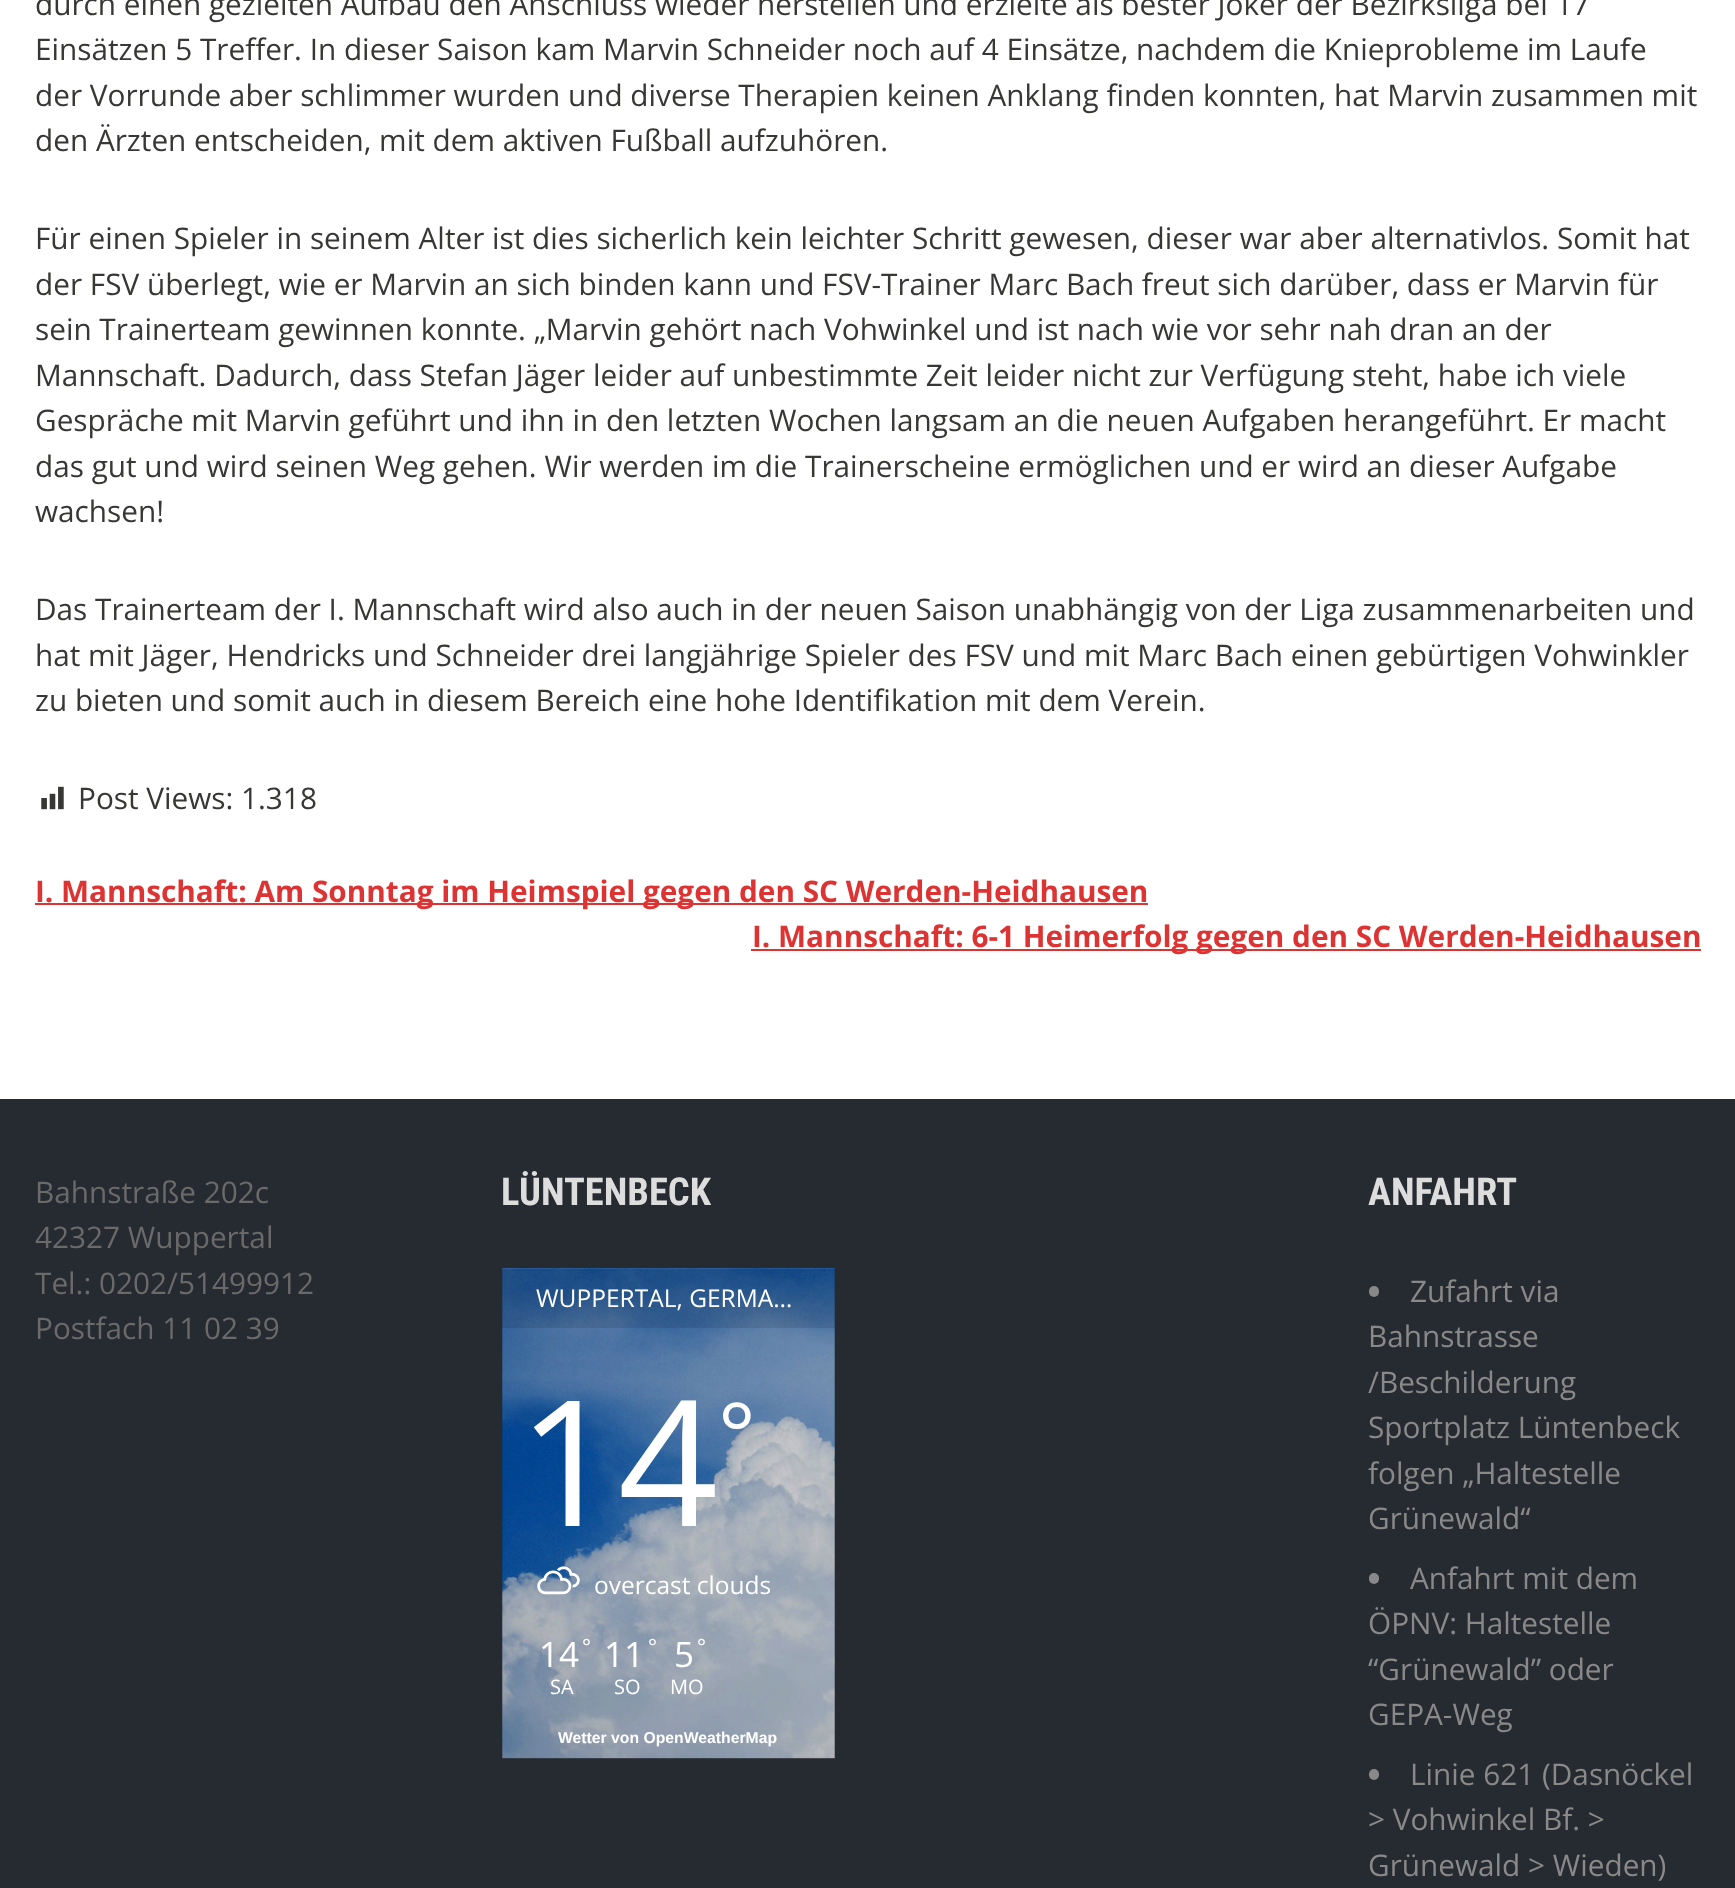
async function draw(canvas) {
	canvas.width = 1735;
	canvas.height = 1888;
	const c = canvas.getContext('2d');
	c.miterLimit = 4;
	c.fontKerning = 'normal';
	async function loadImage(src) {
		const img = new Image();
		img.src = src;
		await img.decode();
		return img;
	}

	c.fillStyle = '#fff';
	c.fillRect(0, 0, 1735, 1888);
	c.font = '29.75px Open Sans';
	c.fillStyle = '#373735';
	for (const [text, x, y] of [
		['durch einen gezielten Aufbau den Anschluss wieder herstellen und erzielte als bester Joker der Bezirksliga bei 17', 35, 15],
		['Einsätzen 5 Treffer. In dieser Saison kam Marvin Schneider noch auf 4 Einsätze, nachdem die Knieprobleme im Laufe', 35, 60],
		['der Vorrunde aber schlimmer wurden und diverse Therapien keinen Anklang finden konnten, hat Marvin zusammen mit', 35, 106],
		['den Ärzten entscheiden, mit dem aktiven Fußball aufzuhören.', 35, 151],
		['Für einen Spieler in seinem Alter ist dies sicherlich kein leichter Schritt gewesen, dieser war aber alternativlos. Somit hat', 35, 249],
		['der FSV überlegt, wie er Marvin an sich binden kann und FSV-Trainer Marc Bach freut sich darüber, dass er Marvin für', 35, 295],
		['sein Trainerteam gewinnen konnte. „Marvin gehört nach Vohwinkel und ist nach wie vor sehr nah dran an der', 35, 340],
		['Mannschaft. Dadurch, dass Stefan Jäger leider auf unbestimmte Zeit leider nicht zur Verfügung steht, habe ich viele', 35, 386],
		['Gespräche mit Marvin geführt und ihn in den letzten Wochen langsam an die neuen Aufgaben herangeführt. Er macht', 35, 431],
		['das gut und wird seinen Weg gehen. Wir werden im die Trainerscheine ermöglichen und er wird an dieser Aufgabe', 35, 477],
		['wachsen!', 35, 522],
		['Das Trainerteam der I. Mannschaft wird also auch in der neuen Saison unabhängig von der Liga zusammenarbeiten und', 35, 620],
		['hat mit Jäger, Hendricks und Schneider drei langjährige Spieler des FSV und mit Marc Bach einen gebürtigen Vohwinkler', 35, 666],
		['zu bieten und somit auch in diesem Bereich eine hohe Identifikation mit dem Verein.', 35, 711],
	]) {
		c.fillText(text, x, y);
	}
	c.drawImage(await loadImage('img1.png'), 41, 786, 23, 24);
	c.fillText('Post Views: 1.318', 78, 809);
	c.fillStyle = '#d33';
	c.fillRect(35, 903, 1113, 2);
	c.font = 'bold 29.75px Open Sans';
	c.fillText('I. Mannschaft: Am Sonntag im Heimspiel gegen den SC Werden-Heidhausen', 35, 902);
	c.fillRect(751, 949, 950, 2);
	c.fillText('I. Mannschaft: 6-1 Heimerfolg gegen den SC Werden-Heidhausen', 752, 947);
	c.fillStyle = '#262a31';
	c.fillRect(0, 1099, 1735, 789);
	c.font = '29.75px Open Sans';
	c.fillStyle = '#6a6a6a';
	for (const [text, x, y] of [
		['Bahnstraße 202c', 35, 1203],
		['42327 Wuppertal', 35, 1248],
		['Tel.: 0202/51499912', 35, 1294],
		['Postfach 11 02 39', 35, 1339],
	]) {
		c.fillText(text, x, y);
	}
	c.font = 'bold 38.5px Roboto Condensed';
	c.fillStyle = '#ddd';
	c.fillText('LÜNTENBECK', 501, 1205);
	c.drawImage(await loadImage('img2.png'), 502, 1268, 333, 491);
	c.fillStyle = '#00000033';
	c.fillRect(502, 1269, 333, 490);
	c.fillStyle = '#0000001a';
	c.fillRect(502, 1269, 333, 59);
	c.font = '24.5px Open Sans';
	c.fillStyle = '#fff';
	c.fillText('WUPPERTAL, GERMA…', 536, 1307);
	c.font = '175px Open Sans';
	c.fillText('14', 518, 1526);
	c.font = '88px Open Sans';
	c.fillText('°', 718, 1466);
	c.drawImage(await loadImage('img3.png'), 537, 1566, 43, 29);
	c.font = '24.5px Open Sans';
	c.fillText('overcast clouds', 594, 1594);
	c.font = '35px Open Sans';
	c.fillText('14', 539, 1667);
	c.font = '21px Open Sans';
	c.fillText('°', 582, 1654);
	c.font = '20px Open Sans';
	c.fillText('SA', 550, 1694);
	c.font = '35px Open Sans';
	c.fillText('11', 604, 1667);
	c.font = '21px Open Sans';
	c.fillText('°', 648, 1654);
	c.font = '20px Open Sans';
	c.fillText('SO', 614, 1694);
	c.font = '35px Open Sans';
	c.fillText('5', 674, 1667);
	c.font = '21px Open Sans';
	c.fillText('°', 697, 1654);
	c.font = '20px Open Sans';
	c.fillText('MO', 670, 1694);
	c.font = 'bold 15.75px Liberation Sans';
	c.fillText('Wetter von OpenWeatherMap', 558, 1743);
	c.font = 'bold 38.5px Roboto Condensed';
	c.fillStyle = '#ddd';
	c.fillText('ANFAHRT', 1368, 1205);
	c.fillStyle = '#8a8989';
	c.beginPath();
	c.roundRect(1369, 1286, 10, 11, 5);
	c.fill();
	c.font = '29.75px Open Sans';
	for (const [text, x, y] of [
		['Zufahrt via', 1410, 1302],
		['Bahnstrasse', 1368, 1347],
		['/Beschilderung', 1368, 1393],
		['Sportplatz Lüntenbeck', 1368, 1438],
		['folgen „Haltestelle', 1368, 1484],
		['Grünewald“', 1368, 1529],
	]) {
		c.fillText(text, x, y);
	}
	c.beginPath();
	c.roundRect(1369, 1573, 10, 11, 5);
	c.fill();
	for (const [text, x, y] of [
		['Anfahrt mit dem', 1410, 1589],
		['ÖPNV: Haltestelle', 1368, 1634],
		['“Grünewald” oder', 1368, 1680],
		['GEPA-Weg', 1368, 1725],
	]) {
		c.fillText(text, x, y);
	}
	c.beginPath();
	c.roundRect(1369, 1769, 10, 11, 5);
	c.fill();
	for (const [text, x, y] of [
		['Linie 621 (Dasnöckel', 1410, 1785],
		['> Vohwinkel Bf. >', 1368, 1830],
		['Grünewald > Wieden)', 1368, 1876],
	]) {
		c.fillText(text, x, y);
	}
}

draw(document.querySelector('canvas'));
